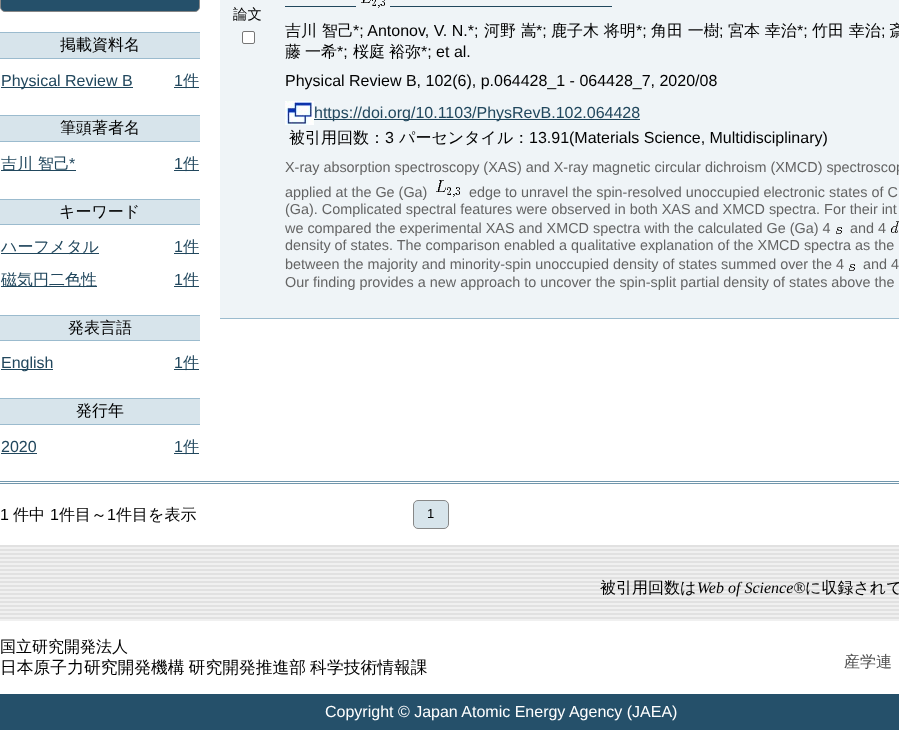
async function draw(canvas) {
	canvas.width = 899;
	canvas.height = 730;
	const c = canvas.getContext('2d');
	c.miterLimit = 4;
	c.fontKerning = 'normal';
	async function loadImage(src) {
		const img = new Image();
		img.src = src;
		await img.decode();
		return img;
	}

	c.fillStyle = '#fff';
	c.fillRect(0, 0, 899, 730);
	c.fillStyle = '#7197ad';
	c.fillRect(0, 481, 899, 1);
	c.fillRect(0, 483, 899, 1);
	c.fillStyle = '#25506a';
	c.beginPath();
	c.roundRect(0.5, -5.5, 199, 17, 4.5);
	c.fill();
	c.strokeStyle = '#878787';
	c.stroke();
	for (const [x, y, w, h, color] of [
		[0, 33, 200, 25, '#d7e4eb'],
		[0, 32, 200, 1, '#9bbbce'],
		[0, 58, 200, 1, '#9bbbce'],
	]) {
		c.fillStyle = color;
		c.fillRect(x, y, w, h);
	}
	c.font = '500 16px WenQuanYi Zen Hei';
	c.fillStyle = '#000';
	c.fillText('掲載資料名', 60, 50);
	c.fillStyle = '#21475d';
	c.fillRect(1, 87, 132, 1);
	c.font = '16px Liberation Sans';
	c.fillText('Physical Review B', 1, 86);
	c.fillText('1', 174, 86);
	c.fillRect(174, 87, 25, 1);
	c.font = '500 16px WenQuanYi Zen Hei';
	c.fillText('件', 183, 86);
	for (const [x, y, w, h, color] of [
		[0, 116, 200, 25, '#d7e4eb'],
		[0, 115, 200, 1, '#9bbbce'],
		[0, 141, 200, 1, '#9bbbce'],
	]) {
		c.fillStyle = color;
		c.fillRect(x, y, w, h);
	}
	c.fillStyle = '#000';
	c.fillText('筆頭著者名', 60, 133);
	c.fillStyle = '#21475d';
	c.fillRect(1, 170, 75, 1);
	c.fillText('吉川 智己', 1, 169);
	c.font = '16px Liberation Sans';
	c.fillText('*', 69, 169);
	c.fillText('1', 174, 169);
	c.fillRect(174, 170, 25, 1);
	c.font = '500 16px WenQuanYi Zen Hei';
	c.fillText('件', 183, 169);
	for (const [x, y, w, h, color] of [
		[0, 200, 200, 24, '#d7e4eb'],
		[0, 199, 200, 1, '#9bbbce'],
		[0, 224, 200, 1, '#9bbbce'],
	]) {
		c.fillStyle = color;
		c.fillRect(x, y, w, h);
	}
	c.fillStyle = '#000';
	c.fillText('キーワード', 59, 217);
	c.fillStyle = '#21475d';
	c.fillRect(1, 253, 98, 1);
	c.fillText('ハーフメタル', 1, 252);
	c.font = '16px Liberation Sans';
	c.fillText('1', 174, 252);
	c.fillRect(174, 253, 25, 1);
	c.font = '500 16px WenQuanYi Zen Hei';
	c.fillText('件', 183, 252);
	c.fillRect(1, 286, 96, 1);
	c.fillText('磁気円二色性', 1, 285);
	c.font = '16px Liberation Sans';
	c.fillText('1', 174, 285);
	c.fillRect(174, 286, 25, 1);
	c.font = '500 16px WenQuanYi Zen Hei';
	c.fillText('件', 183, 285);
	for (const [x, y, w, h, color] of [
		[0, 316, 200, 24, '#d7e4eb'],
		[0, 315, 200, 1, '#9bbbce'],
		[0, 340, 200, 1, '#9bbbce'],
	]) {
		c.fillStyle = color;
		c.fillRect(x, y, w, h);
	}
	c.fillStyle = '#000';
	c.fillText('発表言語', 68, 333);
	c.fillStyle = '#21475d';
	c.fillRect(1, 369, 52, 1);
	c.font = '16px Liberation Sans';
	c.fillText('English', 1, 368);
	c.fillText('1', 174, 368);
	c.fillRect(174, 369, 25, 1);
	c.font = '500 16px WenQuanYi Zen Hei';
	c.fillText('件', 183, 368);
	for (const [x, y, w, h, color] of [
		[0, 399, 200, 25, '#d7e4eb'],
		[0, 398, 200, 1, '#9bbbce'],
		[0, 424, 200, 1, '#9bbbce'],
	]) {
		c.fillStyle = color;
		c.fillRect(x, y, w, h);
	}
	c.fillStyle = '#000';
	c.fillText('発行年', 76, 416);
	c.font = '16px Liberation Sans';
	c.fillStyle = '#21475d';
	c.fillText('2020', 1, 452);
	c.fillRect(1, 453, 36, 1);
	c.fillText('1', 174, 452);
	c.fillRect(174, 453, 25, 1);
	c.font = '500 16px WenQuanYi Zen Hei';
	c.fillText('件', 183, 452);
	c.fillStyle = '#eff4f7';
	c.fillRect(220, 0, 679, 318);
	c.fillStyle = '#9bbbce';
	c.fillRect(220, 318, 679, 1);
	c.font = '500 14.4px WenQuanYi Zen Hei';
	c.fillStyle = '#000';
	c.fillText('論文', 233, 19);
	c.fillStyle = '#fff';
	c.beginPath();
	c.roundRect(242.5, 31.5, 12, 12, 1.5);
	c.fill();
	c.strokeStyle = '#767676';
	c.stroke();
	c.fillStyle = '#21475d';
	c.fillRect(285, 6, 71, 1);
	c.drawImage(await loadImage('img1.png'), 361, 0, 24, 8);
	c.fillRect(390, 6, 222, 1);
	c.font = '500 16px WenQuanYi Zen Hei';
	c.fillStyle = '#000';
	c.fillText('吉川 智己', 285, 36);
	c.font = '16px Liberation Sans';
	c.fillText('*; Antonov, V. N.*;', 353, 36);
	c.font = '500 16px WenQuanYi Zen Hei';
	c.fillText('河野 嵩', 484, 36);
	c.font = '16px Liberation Sans';
	c.fillText('*;', 536, 36);
	c.font = '500 16px WenQuanYi Zen Hei';
	c.fillText('鹿子木 将明', 551, 36);
	c.font = '16px Liberation Sans';
	c.fillText('*;', 636, 36);
	c.font = '500 16px WenQuanYi Zen Hei';
	c.fillText('角田 一樹', 651, 36);
	c.font = '16px Liberation Sans';
	c.fillText(';', 719, 36);
	c.font = '500 16px WenQuanYi Zen Hei';
	c.fillText('宮本 幸治', 728, 36);
	c.font = '16px Liberation Sans';
	c.fillText('*;', 797, 36);
	c.font = '500 16px WenQuanYi Zen Hei';
	c.fillText('竹田 幸治', 812, 36);
	c.font = '16px Liberation Sans';
	c.fillText(';', 881, 36);
	c.font = '500 16px WenQuanYi Zen Hei';
	for (const [text, x, y] of [
		['斎', 889, 36],
		['藤', 285, 57],
		['一希', 305, 57],
	]) {
		c.fillText(text, x, y);
	}
	c.font = '16px Liberation Sans';
	c.fillText('*;', 337, 57);
	c.font = '500 16px WenQuanYi Zen Hei';
	c.fillText('桜庭', 353, 57);
	c.fillText('裕弥', 389, 57);
	c.font = '16px Liberation Sans';
	c.fillText('*; et al.', 421, 57);
	c.fillText('Physical Review B, 102(6), p.064428_1 - 064428_7, 2020/08', 285, 86);
	c.drawImage(await loadImage('img2.png'), 285, 101, 29, 24);
	c.fillStyle = '#21475d';
	c.fillRect(314, 119, 326, 1);
	c.fillText('https://doi.org/10.1103/PhysRevB.102.064428', 314, 118);
	c.font = '500 16px WenQuanYi Zen Hei';
	c.fillStyle = '#000';
	c.fillText('被引用回数：', 289, 143);
	c.font = '16px Liberation Sans';
	c.fillText('3', 385, 143);
	c.font = '500 16px WenQuanYi Zen Hei';
	c.fillText('パーセンタイル：', 399, 143);
	c.font = '16px Liberation Sans';
	c.fillText('13.91(Materials Science, Multidisciplinary)', 529, 143);
	c.font = '14.4px Liberation Sans';
	c.fillStyle = '#646464';
	c.fillText('X-ray absorption spectroscopy (XAS) and X-ray magnetic circular dichroism (XMCD) spectroscop', 285, 172);
	c.fillText('applied at the Ge (Ga)', 285, 197);
	c.drawImage(await loadImage('img3.png'), 436, 180, 24, 17);
	for (const [text, x, y] of [
		['edge to unravel the spin-resolved unoccupied electronic states of C', 469, 197],
		['(Ga). Complicated spectral features were observed in both XAS and XMCD spectra. For their int', 285, 214],
		['we compared the experimental XAS and XMCD spectra with the calculated Ge (Ga) 4', 285, 233],
	]) {
		c.fillText(text, x, y);
	}
	c.drawImage(await loadImage('img4.png'), 836, 227, 6, 7);
	c.fillText('and 4', 850, 233);
	c.drawImage(await loadImage('img5.png'), 891, 221, 8, 12);
	c.fillText('density of states. The comparison enabled a qualitative explanation of the XMCD spectra as the', 285, 250);
	c.fillText('between the majority and minority-spin unoccupied density of states summed over the 4', 285, 269);
	c.drawImage(await loadImage('img4.png'), 849, 264, 6, 7);
	c.fillText('and 4', 863, 269);
	c.fillText('Our finding provides a new approach to uncover the spin-split partial density of states above the', 285, 287);
	c.font = '16px Liberation Sans';
	c.fillStyle = '#000';
	c.fillText('1', 0, 520);
	c.font = '500 16px WenQuanYi Zen Hei';
	c.fillText('件中', 13, 520);
	c.font = '16px Liberation Sans';
	c.fillText('1', 50, 520);
	c.font = '500 16px WenQuanYi Zen Hei';
	c.fillText('件目～', 59, 520);
	c.font = '16px Liberation Sans';
	c.fillText('1', 107, 520);
	c.font = '500 16px WenQuanYi Zen Hei';
	c.fillText('件目を表示', 116, 520);
	c.fillStyle = '#d7e4eb';
	c.beginPath();
	c.roundRect(413.5, 500.5, 35, 28, 4.5);
	c.fill();
	c.strokeStyle = '#878787';
	c.stroke();
	c.font = '13px Liberation Sans';
	c.fillStyle = '#000';
	c.fillText('1', 427, 518);
	c.drawImage(await loadImage('img6.png'), 0, 545, 899, 76);
	c.font = '500 16px WenQuanYi Zen Hei';
	c.fillText('被引用回数は', 600, 593);
	c.font = 'italic 16px Liberation Serif';
	c.fillText('Web of Science®', 697, 593);
	c.font = '500 16px WenQuanYi Zen Hei';
	c.fillText('に収録されて', 805, 593);
	c.fillText('国立研究開発法人', 0, 652);
	c.wordSpacing = '-1px';
	c.font = '500 16.8px WenQuanYi Zen Hei';
	c.fillText('日本原子力研究開発機構 研究開発推進部 科学技術情報課', 0, 673);
	c.wordSpacing = '0px';
	c.font = '500 16px WenQuanYi Zen Hei';
	c.fillStyle = '#505050';
	c.fillText('産学連', 844, 667);
	c.fillStyle = '#25506a';
	c.fillRect(0, 694, 899, 36);
	c.font = '16px Liberation Sans';
	c.fillStyle = '#fff';
	c.fillText('Copyright © Japan Atomic Energy Agency (JAEA)', 325, 717);
}

draw(document.querySelector('canvas'));
